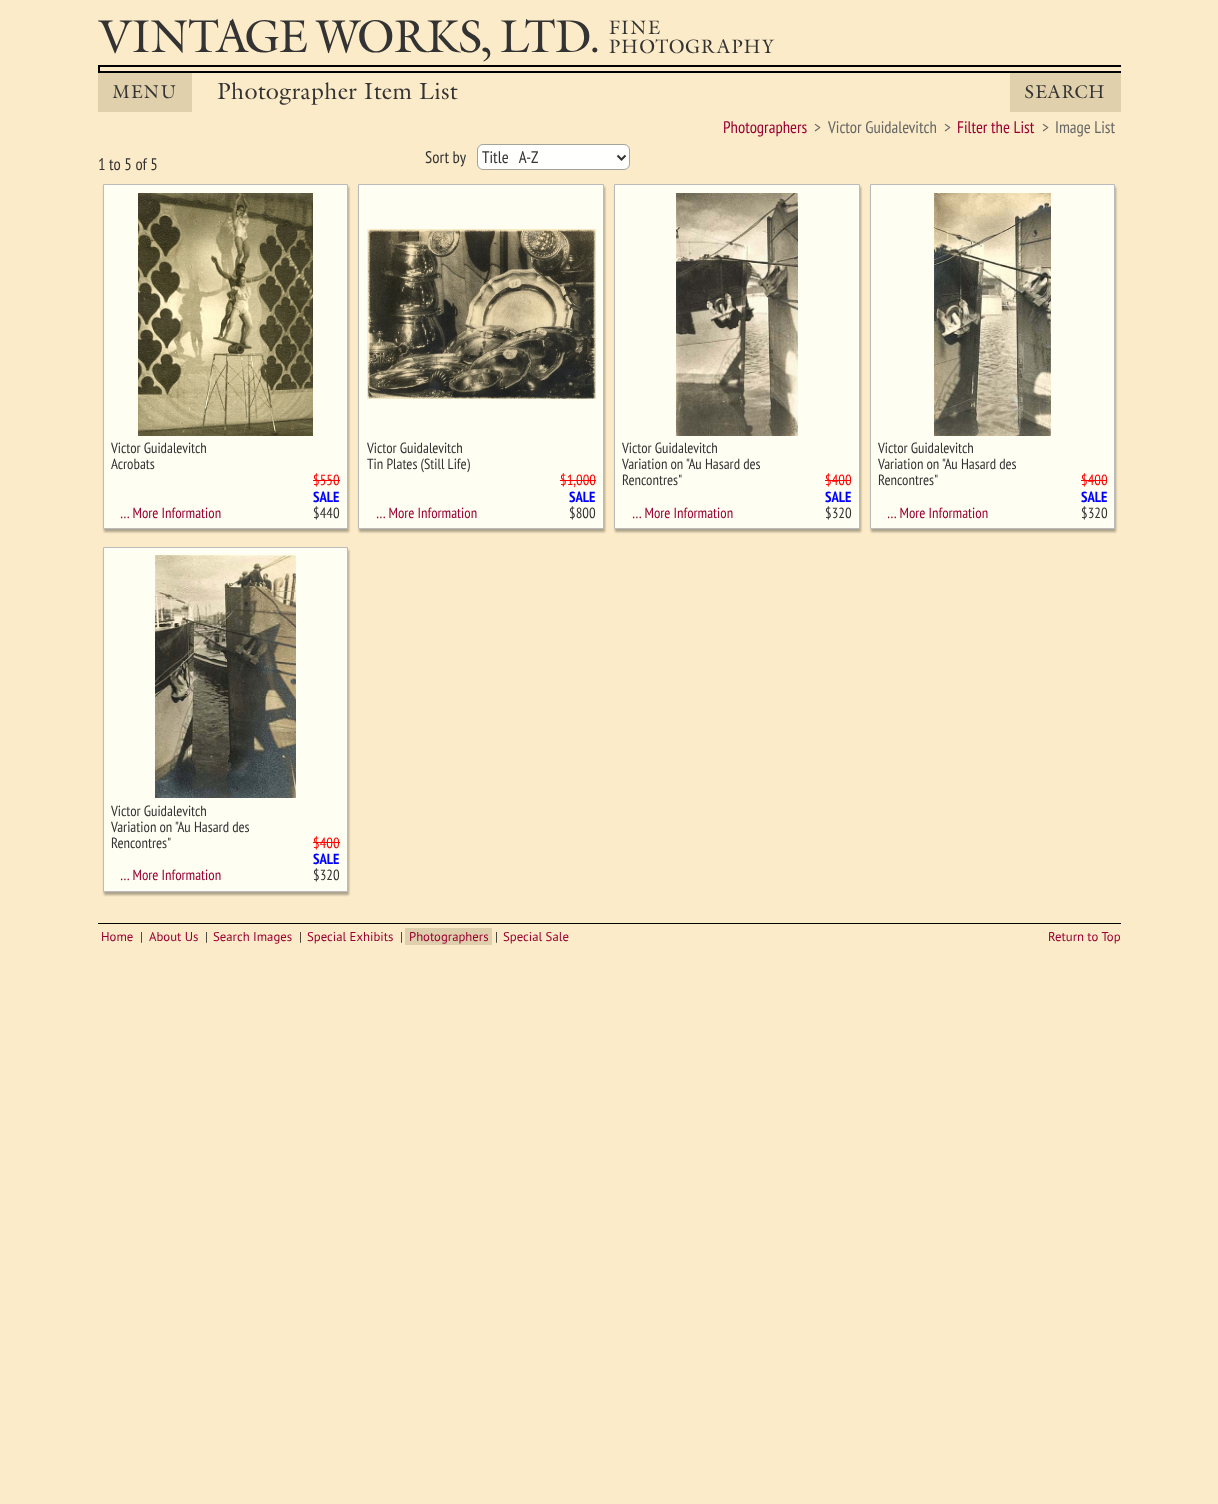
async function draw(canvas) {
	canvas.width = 1218;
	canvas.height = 1504;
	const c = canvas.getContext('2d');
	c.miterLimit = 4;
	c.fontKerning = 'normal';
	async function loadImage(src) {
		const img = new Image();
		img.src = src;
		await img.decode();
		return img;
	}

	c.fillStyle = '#fbebc8';
	c.fillRect(0, 0, 1218, 1504);
	c.letterSpacing = '-2.8px';
	c.font = '47.25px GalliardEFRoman';
	c.fillStyle = '#333';
	c.fillText('VINTAGE WORKS, LTD.', 98, 52);
	c.letterSpacing = '0px';
	c.font = '20px GalliardEFRoman';
	c.fillText('FINE', 608, 34);
	c.fillText('PHOTOGRAPHY', 608, 53);
	for (const [x, y, w, h, color] of [
		[98, 65, 1023, 2, '#000'],
		[98, 71, 1023, 2, '#000'],
		[98, 65, 2, 8, '#000'],
		[98, 73, 94, 39, '#e0d0ab'],
	]) {
		c.fillStyle = color;
		c.fillRect(x, y, w, h);
	}
	c.font = '19px GalliardEFRoman';
	c.fillStyle = '#333';
	c.fillText('MENU', 112, 98);
	c.font = '24px GalliardEFRoman';
	c.fillText('Photographer Item List', 216, 99);
	c.fillStyle = '#e0d0ab';
	c.fillRect(1010, 73, 111, 39);
	c.font = '19px GalliardEFRoman';
	c.fillStyle = '#333';
	c.fillText('SEARCH', 1024, 98);
	c.fillStyle = '#000';
	c.fillRect(98, 923, 1023, 1);
	c.font = '16.75px PT Sans Narrow';
	c.fillStyle = '#903';
	c.fillText('Photographers', 723, 133);
	c.fillStyle = '#666';
	for (const [text, x, y] of [
		['>', 814, 133],
		['Victor Guidalevitch', 828, 133],
		['>', 944, 133],
	]) {
		c.fillText(text, x, y);
	}
	c.fillStyle = '#903';
	c.fillText('Filter the List', 957, 133);
	c.fillStyle = '#666';
	c.fillText('>', 1042, 133);
	c.fillText('Image List', 1055, 133);
	c.fillStyle = '#333';
	c.fillText('1 to 5 of 5', 98, 170);
	c.fillText('Sort by', 425, 163);
	c.fillStyle = '#fffffe';
	c.beginPath();
	c.roundRect(477.5, 144.5, 152, 25, 5.5);
	c.fill();
	c.strokeStyle = '#a4a39a';
	c.stroke();
	c.beginPath();
	c.moveTo(617.5, 155.5);
	c.lineTo(621.5, 159.5);
	c.lineTo(625.5, 155.5);
	c.strokeStyle = '#333';
	c.lineWidth = 2;
	c.stroke();
	c.fillStyle = '#333';
	c.fillText('Title   A-Z', 482, 163);
	c.fillStyle = '#0000004d';
	c.filter = 'blur(1px)';
	c.beginPath();
	c.rect(104, 187, 245, 345);
	c.fill();
	c.filter = 'none';
	c.fillStyle = '#fefef3';
	c.beginPath();
	c.rect(103.5, 184.5, 244, 344);
	c.fill();
	c.strokeStyle = '#bbb';
	c.lineWidth = 1;
	c.stroke();
	c.drawImage(await loadImage('img1.png'), 138, 193, 175, 243);
	c.font = '14.75px PT Sans Narrow';
	c.fillStyle = '#333';
	c.fillText('Victor Guidalevitch', 111, 453);
	c.fillText('Acrobats', 111, 469);
	c.fillStyle = '#903';
	c.fillText('… More Information', 120, 518);
	c.fillStyle = '#f00';
	c.fillText('$550', 313, 485);
	c.fillRect(313, 480, 27, 1);
	c.font = 'bold 14.75px PT Sans Narrow';
	c.fillStyle = '#00f';
	c.fillText('SALE', 313, 502);
	c.font = '14.75px PT Sans Narrow';
	c.fillStyle = '#333';
	c.fillText('$440', 313, 518);
	c.fillStyle = '#0000004d';
	c.filter = 'blur(1px)';
	c.beginPath();
	c.rect(359, 187, 246, 345);
	c.fill();
	c.filter = 'none';
	c.fillStyle = '#fefef3';
	c.beginPath();
	c.rect(358.5, 184.5, 245, 344);
	c.fill();
	c.stroke();
	c.drawImage(await loadImage('img2.png'), 367, 229, 229, 170);
	c.fillStyle = '#333';
	c.fillText('Victor Guidalevitch', 367, 453);
	c.fillText('Tin Plates (Still Life)', 367, 469);
	c.fillStyle = '#903';
	c.fillText('… More Information', 376, 518);
	c.fillStyle = '#f00';
	c.fillText('$1,000', 560, 485);
	c.fillRect(560, 480, 36, 1);
	c.font = 'bold 14.75px PT Sans Narrow';
	c.fillStyle = '#00f';
	c.fillText('SALE', 569, 502);
	c.font = '14.75px PT Sans Narrow';
	c.fillStyle = '#333';
	c.fillText('$800', 569, 518);
	c.fillStyle = '#0000004d';
	c.filter = 'blur(1px)';
	c.beginPath();
	c.rect(615, 187, 246, 345);
	c.fill();
	c.filter = 'none';
	c.fillStyle = '#fefef3';
	c.beginPath();
	c.rect(614.5, 184.5, 245, 344);
	c.fill();
	c.stroke();
	c.drawImage(await loadImage('img3.png'), 676, 193, 122, 243);
	c.fillStyle = '#333';
	for (const [text, x, y] of [
		['Victor Guidalevitch', 622, 453],
		['Variation on "Au Hasard des', 622, 469],
		['Rencontres"', 622, 485],
	]) {
		c.fillText(text, x, y);
	}
	c.fillStyle = '#903';
	c.fillText('… More Information', 632, 518);
	c.fillStyle = '#f00';
	c.fillText('$400', 825, 485);
	c.fillRect(825, 480, 26, 1);
	c.font = 'bold 14.75px PT Sans Narrow';
	c.fillStyle = '#00f';
	c.fillText('SALE', 825, 502);
	c.font = '14.75px PT Sans Narrow';
	c.fillStyle = '#333';
	c.fillText('$320', 825, 518);
	c.fillStyle = '#0000004d';
	c.filter = 'blur(1px)';
	c.beginPath();
	c.rect(871, 187, 245, 345);
	c.fill();
	c.filter = 'none';
	c.fillStyle = '#fefef3';
	c.beginPath();
	c.rect(870.5, 184.5, 244, 344);
	c.fill();
	c.stroke();
	c.drawImage(await loadImage('img4.png'), 934, 193, 117, 243);
	c.fillStyle = '#333';
	for (const [text, x, y] of [
		['Victor Guidalevitch', 878, 453],
		['Variation on "Au Hasard des', 878, 469],
		['Rencontres"', 878, 485],
	]) {
		c.fillText(text, x, y);
	}
	c.fillStyle = '#903';
	c.fillText('… More Information', 887, 518);
	c.fillStyle = '#f00';
	c.fillText('$400', 1081, 485);
	c.fillRect(1081, 480, 26, 1);
	c.font = 'bold 14.75px PT Sans Narrow';
	c.fillStyle = '#00f';
	c.fillText('SALE', 1081, 502);
	c.font = '14.75px PT Sans Narrow';
	c.fillStyle = '#333';
	c.fillText('$320', 1081, 518);
	c.fillStyle = '#0000004d';
	c.filter = 'blur(1px)';
	c.beginPath();
	c.rect(104, 550, 245, 345);
	c.fill();
	c.filter = 'none';
	c.fillStyle = '#fefef3';
	c.beginPath();
	c.rect(103.5, 547.5, 244, 344);
	c.fill();
	c.stroke();
	c.drawImage(await loadImage('img5.png'), 155, 555, 141, 243);
	c.fillStyle = '#333';
	for (const [text, x, y] of [
		['Victor Guidalevitch', 111, 816],
		['Variation on "Au Hasard des', 111, 832],
		['Rencontres"', 111, 848],
	]) {
		c.fillText(text, x, y);
	}
	c.fillStyle = '#903';
	c.fillText('… More Information', 120, 880);
	c.fillStyle = '#f00';
	c.fillText('$400', 313, 848);
	c.fillRect(313, 842, 27, 1);
	c.font = 'bold 14.75px PT Sans Narrow';
	c.fillStyle = '#00f';
	c.fillText('SALE', 313, 864);
	c.font = '14.75px PT Sans Narrow';
	c.fillStyle = '#333';
	c.fillText('$320', 313, 880);
	c.font = '12.75px PT Sans';
	c.fillStyle = '#903';
	c.fillText('Home', 101, 941);
	c.fillStyle = '#333';
	c.fillText('|', 140, 941);
	c.fillStyle = '#903';
	c.fillText('About Us', 149, 941);
	c.fillStyle = '#333';
	c.fillText('|', 205, 941);
	c.fillStyle = '#903';
	c.fillText('Search Images', 213, 941);
	c.fillStyle = '#333';
	c.fillText('|', 299, 941);
	c.fillStyle = '#903';
	c.fillText('Special Exhibits', 307, 941);
	c.fillStyle = '#333';
	c.fillText('|', 400, 941);
	c.fillStyle = '#dfd0ad';
	c.fillRect(405, 928, 87, 17);
	c.fillStyle = '#903';
	c.fillText('Photographers', 409, 941);
	c.fillStyle = '#333';
	c.fillText('|', 495, 941);
	c.fillStyle = '#903';
	c.fillText('Special Sale', 503, 941);
	c.fillText('Return to Top', 1048, 941);
}

draw(document.querySelector('canvas'));
